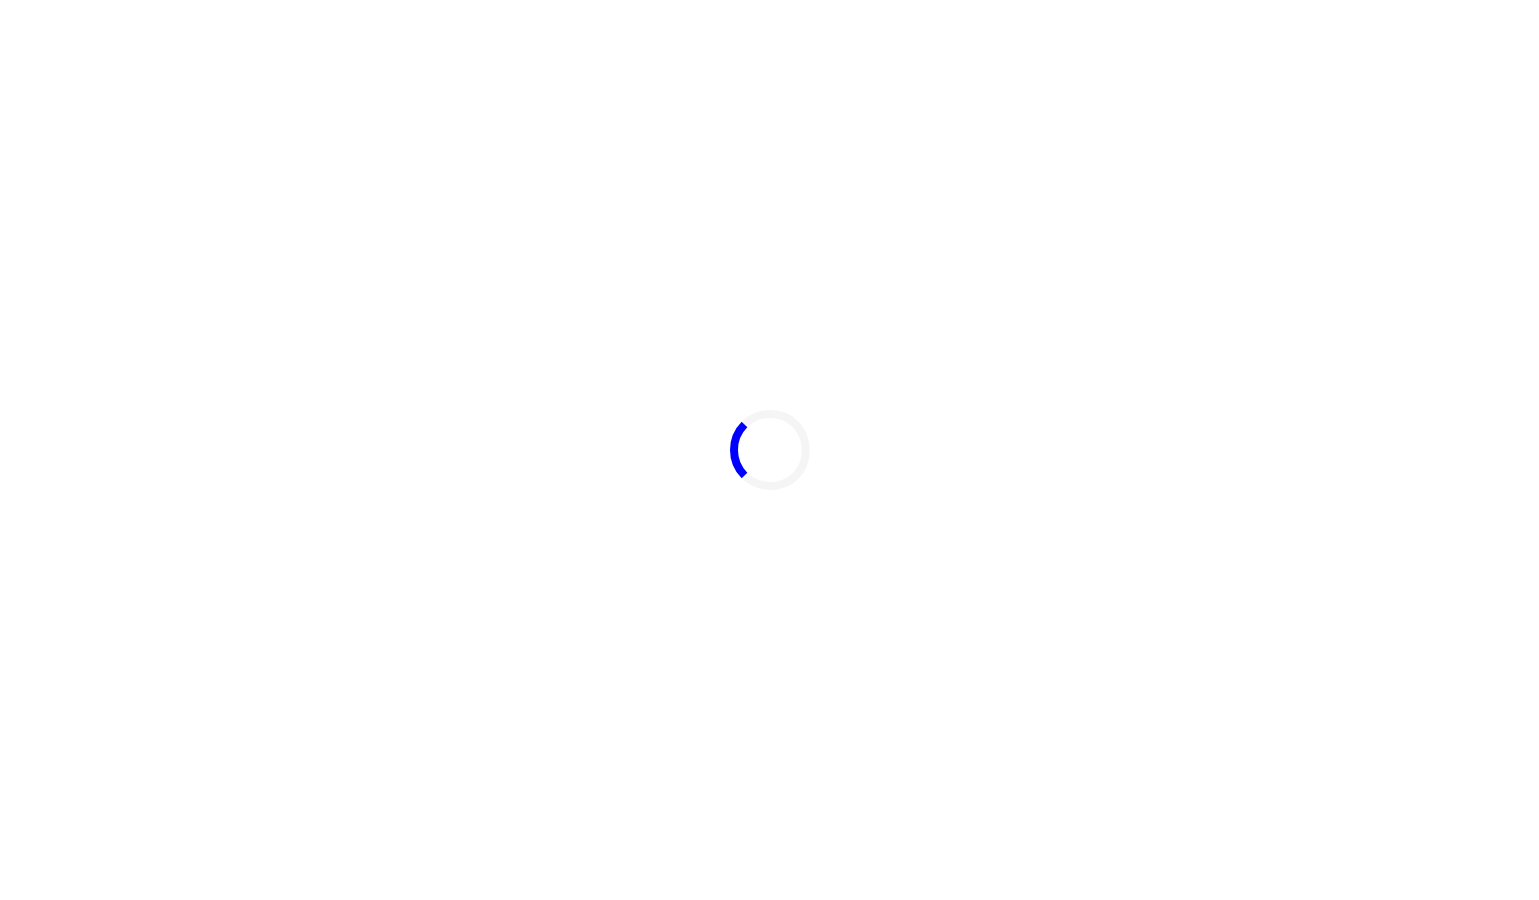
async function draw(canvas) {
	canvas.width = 1539;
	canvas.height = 900;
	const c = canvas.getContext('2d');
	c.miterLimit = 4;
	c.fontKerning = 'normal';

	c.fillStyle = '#fff';
	c.fillRect(0, 0, 1539, 900);
	c.beginPath();
	c.moveTo(744.5, 424.5);
	c.bezierCurveTo(751, 418, 760.5, 414, 770, 414);
	c.bezierCurveTo(813, 414, 819.5, 477, 777, 485.5);
	c.bezierCurveTo(765.5, 487.5, 753, 484, 744.5, 475.5);
	c.strokeStyle = '#f5f5f5';
	c.lineWidth = 8;
	c.stroke();
	c.beginPath();
	c.moveTo(744.5, 475.5);
	c.bezierCurveTo(730.5, 461.5, 730.5, 438.5, 744.5, 424.5);
	c.strokeStyle = '#00f';
	c.stroke();
}

draw(document.querySelector('canvas'));
